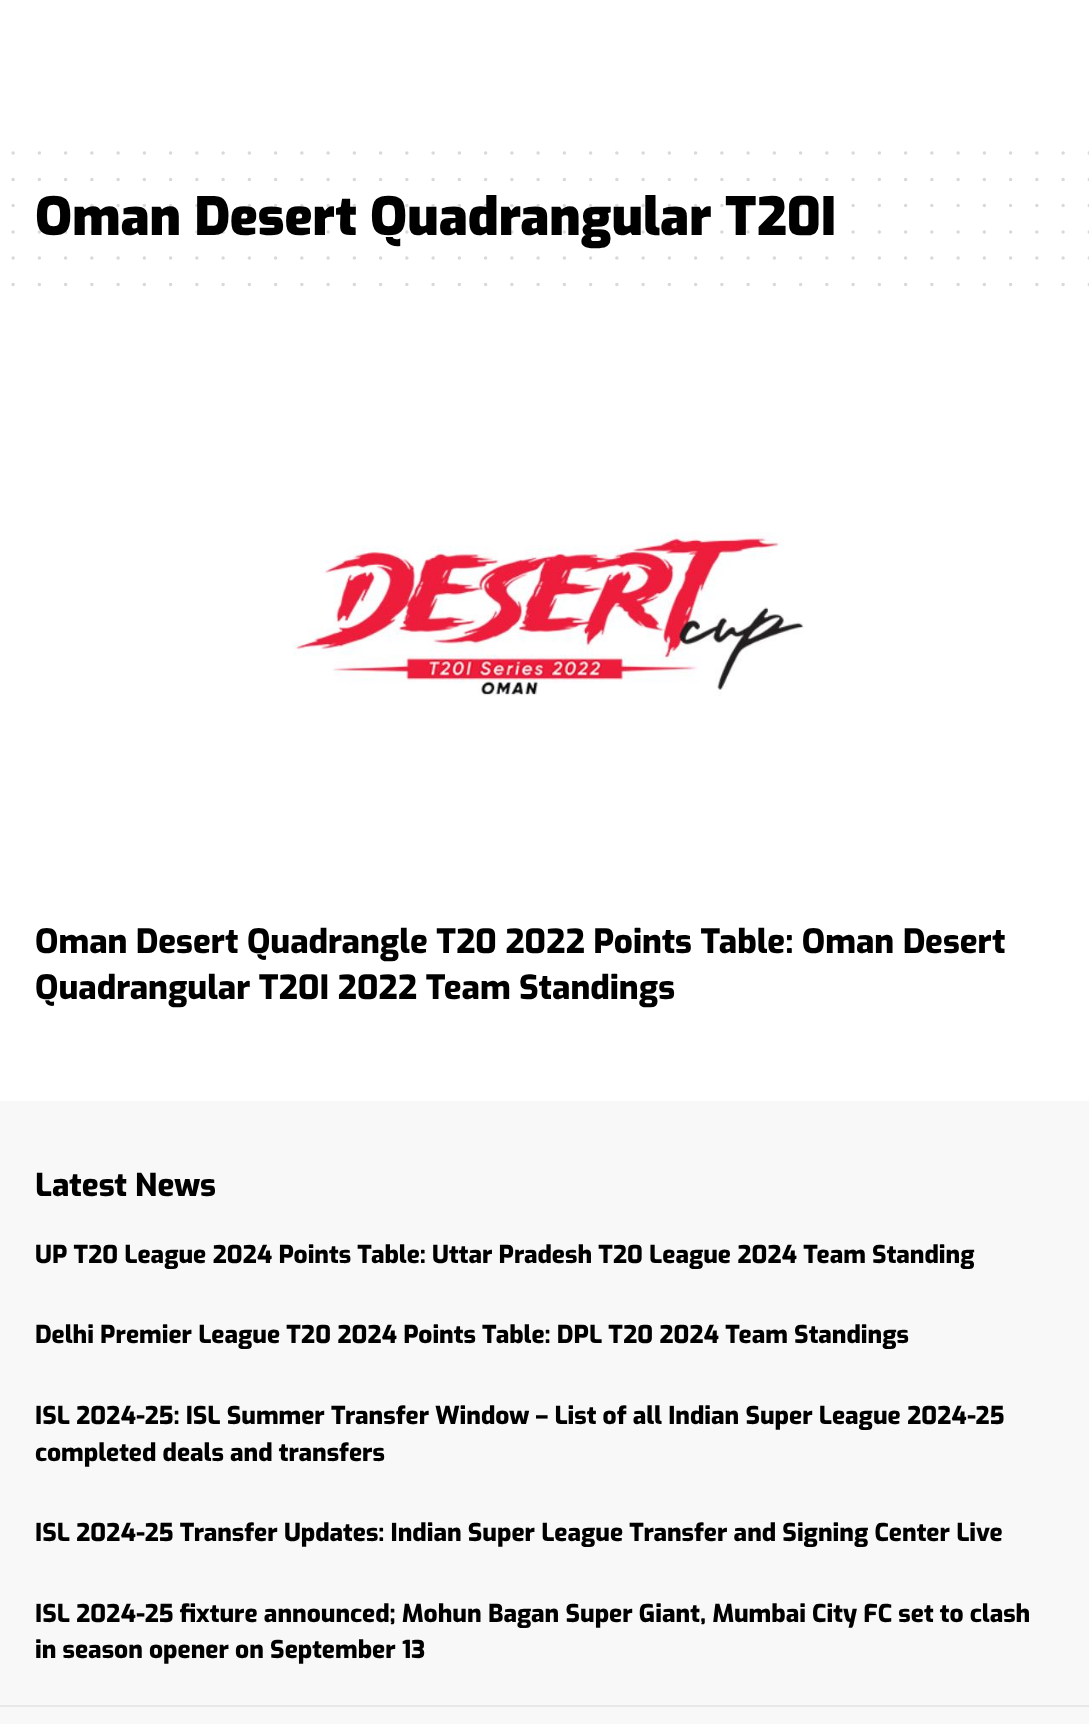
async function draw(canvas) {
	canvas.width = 1089;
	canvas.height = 1724;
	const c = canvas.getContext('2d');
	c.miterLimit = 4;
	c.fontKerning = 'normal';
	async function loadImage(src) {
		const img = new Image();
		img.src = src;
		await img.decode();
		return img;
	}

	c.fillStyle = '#fff';
	c.fillRect(0, 0, 1089, 1724);
	c.beginPath();
	c.moveTo(13.1, 153.1);
	c.lineTo(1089.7, 153.1);
	c.strokeStyle = '#d9d9d9';
	c.lineWidth = 3.5;
	c.lineCap = 'round';
	c.setLineDash([0, 26.25]);
	c.stroke();
	c.beginPath();
	c.moveTo(13.1, 179.4);
	c.lineTo(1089.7, 179.4);
	c.stroke();
	c.font = '900 52.5px Exo';
	c.fillStyle = '#000';
	c.fillText('Oman Desert Quadrangular T20I', 35, 235);
	c.beginPath();
	c.moveTo(13.1, 205.6);
	c.lineTo(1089.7, 205.6);
	c.strokeStyle = '#00000026';
	c.stroke();
	c.beginPath();
	c.moveTo(13.1, 231.9);
	c.lineTo(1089.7, 231.9);
	c.stroke();
	c.beginPath();
	c.moveTo(13.1, 258.1);
	c.lineTo(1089.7, 258.1);
	c.strokeStyle = '#d9d9d9';
	c.stroke();
	c.beginPath();
	c.moveTo(13.1, 284.4);
	c.lineTo(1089.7, 284.4);
	c.stroke();
	c.drawImage(await loadImage('img1.png'), 293, 532, 511, 164);
	c.font = '800 33.25px Exo';
	c.fillText('Oman Desert Quadrangle T20 2022 Points Table: Oman Desert', 35, 953);
	c.fillText('Quadrangular T20I 2022 Team Standings', 35, 999);
	c.fillStyle = '#f8f8f8';
	c.fillRect(0, 1101, 1089, 623);
	c.fillStyle = '#e8e8e8';
	c.fillRect(0, 1705, 1089, 2);
	c.font = '800 31.5px Exo';
	c.fillStyle = '#000';
	c.fillText('Latest News', 35, 1196);
	c.font = '800 24.5px Exo';
	for (const [text, x, y] of [
		['UP T20 League 2024 Points Table: Uttar Pradesh T20 League 2024 Team Standing', 35, 1263],
		['Delhi Premier League T20 2024 Points Table: DPL T20 2024 Team Standings', 35, 1343],
		['ISL 2024-25: ISL Summer Transfer Window – List of all Indian Super League 2024-25', 35, 1424],
		['completed deals and transfers', 35, 1461],
		['ISL 2024-25 Transfer Updates: Indian Super League Transfer and Signing Center Live', 35, 1541],
		['ISL 2024-25 fixture announced; Mohun Bagan Super Giant, Mumbai City FC set to clash', 35, 1622],
		['in season opener on September 13', 35, 1658],
	]) {
		c.fillText(text, x, y);
	}
}

draw(document.querySelector('canvas'));
